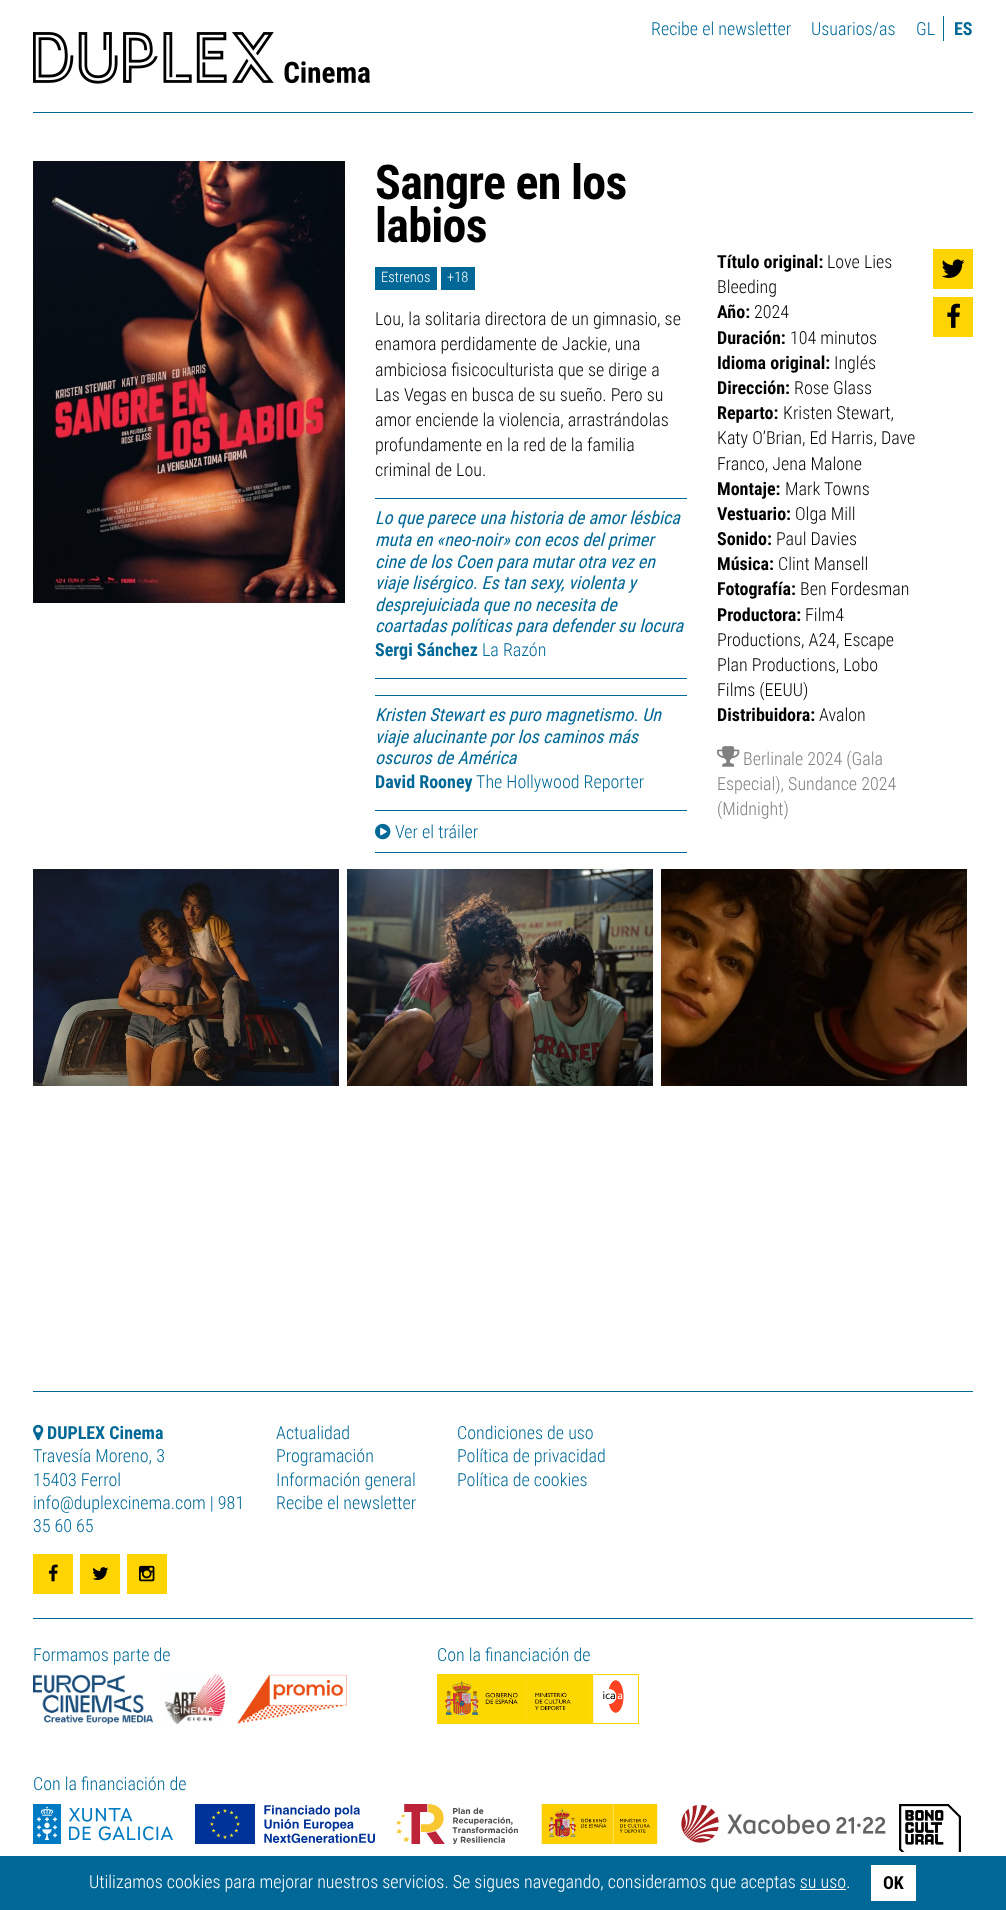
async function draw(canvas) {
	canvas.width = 1006;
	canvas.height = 1910;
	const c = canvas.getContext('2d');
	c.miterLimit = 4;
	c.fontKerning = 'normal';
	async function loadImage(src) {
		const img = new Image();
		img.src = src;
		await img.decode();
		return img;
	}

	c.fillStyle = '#fff';
	c.fillRect(0, 0, 1006, 1910);
	c.fillStyle = '#006897';
	c.fillRect(33, 112, 940, 1);
	c.font = '300 18px Roboto Condensed';
	c.fillText('Recibe el newsletter', 651, 35);
	c.fillText('Usuarios/as', 811, 35);
	c.fillRect(943, 16, 1, 25);
	c.fillText('GL', 916, 35);
	c.font = 'bold 18px Roboto Condensed';
	c.fillText('ES', 954, 35);
	c.drawImage(await loadImage('img1.png'), 33, 32, 337, 52);
	c.drawImage(await loadImage('img2.png'), 33, 161, 312, 442);
	c.letterSpacing = '-0.75px';
	c.font = 'bold 48px Roboto Condensed';
	c.fillStyle = '#000';
	c.fillText('Sangre en los', 375, 199);
	c.fillText('labios', 375, 242);
	c.fillStyle = '#006897';
	c.fillRect(375, 267, 62, 23);
	c.letterSpacing = '0px';
	c.font = '300 14.5px Roboto Condensed';
	c.fillStyle = '#fff';
	c.fillText('Estrenos', 381, 282);
	c.fillStyle = '#006897';
	c.fillRect(441, 267, 34, 23);
	c.fillStyle = '#fff';
	c.fillText('+18', 447, 282);
	c.font = '300 18px Roboto Condensed';
	c.fillStyle = '#000';
	for (const [text, x, y] of [
		['Lou, la solitaria directora de un gimnasio, se', 375, 325],
		['enamora perdidamente de Jackie, una', 375, 350],
		['ambiciosa fisicoculturista que se dirige a', 375, 376],
		['Las Vegas en busca de su sueño. Pero su', 375, 401],
		['amor enciende la violencia, arrastrándolas', 375, 426],
		['profundamente en la red de la familia', 375, 451],
		['criminal de Lou.', 375, 476],
	]) {
		c.fillText(text, x, y);
	}
	c.fillStyle = '#006897';
	c.fillRect(375, 498, 312, 1);
	c.fillRect(375, 678, 312, 1);
	c.font = 'italic 18px Roboto Condensed';
	for (const [text, x, y] of [
		['Lo que parece una historia de amor lésbica', 375, 524],
		['muta en «neo-noir» con ecos del primer', 375, 546],
		['cine de los Coen para mutar otra vez en', 375, 568],
		['viaje lisérgico. Es tan sexy, violenta y', 375, 589],
		['desprejuiciada que no necesita de', 375, 611],
		['coartadas políticas para defender su locura', 375, 632],
	]) {
		c.fillText(text, x, y);
	}
	c.font = 'bold 18px Roboto Condensed';
	c.fillText('Sergi Sánchez', 375, 656);
	c.font = '300 18px Roboto Condensed';
	c.fillText('La Razón', 482, 656);
	c.fillRect(375, 695, 312, 1);
	c.fillRect(375, 810, 312, 1);
	c.font = 'italic 18px Roboto Condensed';
	for (const [text, x, y] of [
		['Kristen Stewart es puro magnetismo. Un', 375, 721],
		['viaje alucinante por los caminos más', 375, 743],
		['oscuros de América', 375, 764],
	]) {
		c.fillText(text, x, y);
	}
	c.font = 'bold 18px Roboto Condensed';
	c.fillText('David Rooney', 375, 788);
	c.font = '300 18px Roboto Condensed';
	c.fillText('The Hollywood Reporter', 476, 788);
	c.fillRect(375, 852, 312, 1);
	c.drawImage(await loadImage('img3.png'), 375, 823, 16, 17);
	c.fillText('Ver el tráiler', 395, 838);
	c.font = 'bold 18px Roboto Condensed';
	c.fillStyle = '#000';
	c.fillText('Título original:', 717, 268);
	c.font = '300 18px Roboto Condensed';
	c.fillText('Love Lies', 827, 268);
	c.fillText('Bleeding', 717, 293);
	c.font = 'bold 18px Roboto Condensed';
	c.fillText('Año:', 717, 318);
	c.font = '300 18px Roboto Condensed';
	c.fillText('2024', 754, 318);
	c.font = 'bold 18px Roboto Condensed';
	c.fillText('Duración:', 717, 344);
	c.font = '300 18px Roboto Condensed';
	c.fillText('104 minutos', 790, 344);
	c.font = 'bold 18px Roboto Condensed';
	c.fillText('Idioma original:', 717, 369);
	c.font = '300 18px Roboto Condensed';
	c.fillText('Inglés', 834, 369);
	c.font = 'bold 18px Roboto Condensed';
	c.fillText('Dirección:', 717, 394);
	c.font = '300 18px Roboto Condensed';
	c.fillText('Rose Glass', 794, 394);
	c.font = 'bold 18px Roboto Condensed';
	c.fillText('Reparto:', 717, 419);
	c.font = '300 18px Roboto Condensed';
	for (const [text, x, y] of [
		['Kristen Stewart,', 783, 419],
		['Katy O’Brian, Ed Harris, Dave', 717, 444],
		['Franco, Jena Malone', 717, 470],
	]) {
		c.fillText(text, x, y);
	}
	c.font = 'bold 18px Roboto Condensed';
	c.fillText('Montaje:', 717, 495);
	c.font = '300 18px Roboto Condensed';
	c.fillText('Mark Towns', 785, 495);
	c.font = 'bold 18px Roboto Condensed';
	c.fillText('Vestuario:', 717, 520);
	c.font = '300 18px Roboto Condensed';
	c.fillText('Olga Mill', 795, 520);
	c.font = 'bold 18px Roboto Condensed';
	c.fillText('Sonido:', 717, 545);
	c.font = '300 18px Roboto Condensed';
	c.fillText('Paul Davies', 776, 545);
	c.font = 'bold 18px Roboto Condensed';
	c.fillText('Música:', 717, 570);
	c.font = '300 18px Roboto Condensed';
	c.fillText('Clint Mansell', 778, 570);
	c.font = 'bold 18px Roboto Condensed';
	c.fillText('Fotografía:', 717, 595);
	c.font = '300 18px Roboto Condensed';
	c.fillText('Ben Fordesman', 800, 595);
	c.font = 'bold 18px Roboto Condensed';
	c.fillText('Productora:', 717, 621);
	c.font = '300 18px Roboto Condensed';
	for (const [text, x, y] of [
		['Film4', 805, 621],
		['Productions, A24, Escape', 717, 646],
		['Plan Productions, Lobo', 717, 671],
		['Films (EEUU)', 717, 696],
	]) {
		c.fillText(text, x, y);
	}
	c.font = 'bold 18px Roboto Condensed';
	c.fillText('Distribuidora:', 717, 721);
	c.font = '300 18px Roboto Condensed';
	c.fillText('Avalon', 819, 721);
	c.drawImage(await loadImage('img4.png'), 717, 746, 23, 21);
	c.fillStyle = '#808080';
	for (const [text, x, y] of [
		['Berlinale 2024 (Gala', 743, 765],
		['Especial), Sundance 2024', 717, 790],
		['(Midnight)', 717, 815],
	]) {
		c.fillText(text, x, y);
	}
	c.fillStyle = '#ffd400';
	c.fillRect(933, 249, 40, 40);
	c.drawImage(await loadImage('img5.png'), 941, 259, 24, 19);
	c.fillRect(933, 297, 40, 40);
	c.drawImage(await loadImage('img6.png'), 947, 303, 13, 25);
	c.drawImage(await loadImage('img7.png'), 33, 869, 306, 217);
	c.drawImage(await loadImage('img8.png'), 347, 869, 306, 217);
	c.drawImage(await loadImage('img9.png'), 661, 869, 306, 217);
	c.fillStyle = '#006897';
	c.fillRect(33, 1391, 940, 1);
	c.drawImage(await loadImage('img10.png'), 33, 1424, 11, 17);
	c.font = 'bold 18px Roboto Condensed';
	c.fillText('DUPLEX Cinema', 47, 1439);
	c.font = '300 18px Roboto Condensed';
	for (const [text, x, y] of [
		['Travesía Moreno, 3', 33, 1462],
		['15403 Ferrol', 33, 1486],
		['info@duplexcinema.com | 981', 33, 1509],
		['35 60 65', 33, 1532],
	]) {
		c.fillText(text, x, y);
	}
	c.fillStyle = '#ffd400';
	c.fillRect(33, 1554, 40, 40);
	c.drawImage(await loadImage('img11.png'), 48, 1564, 10, 18);
	c.fillRect(80, 1554, 40, 40);
	c.drawImage(await loadImage('img12.png'), 92, 1567, 17, 13);
	c.fillRect(127, 1554, 40, 40);
	c.drawImage(await loadImage('img13.png'), 139, 1565, 16, 17);
	c.fillStyle = '#006897';
	for (const [text, x, y] of [
		['Actualidad', 276, 1439],
		['Programación', 276, 1462],
		['Información general', 276, 1486],
		['Recibe el newsletter', 276, 1509],
		['Condiciones de uso', 457, 1439],
		['Política de privacidad', 457, 1462],
		['Política de cookies', 457, 1486],
	]) {
		c.fillText(text, x, y);
	}
	c.fillRect(33, 1618, 940, 1);
	c.fillText('Formamos parte de', 33, 1661);
	c.drawImage(await loadImage('img14.png'), 33, 1674, 120, 50);
	c.drawImage(await loadImage('img15.png'), 165, 1674, 60, 50);
	c.drawImage(await loadImage('img16.png'), 237, 1674, 110, 50);
	c.fillText('Con la financiación de', 437, 1661);
	c.drawImage(await loadImage('img17.png'), 437, 1674, 202, 50);
	c.fillText('Con la financiación de', 33, 1790);
	c.drawImage(await loadImage('img18.png'), 33, 1804, 140, 40);
	c.drawImage(await loadImage('img19.png'), 195, 1804, 180, 40);
	c.drawImage(await loadImage('img20.png'), 396, 1804, 122, 40);
	c.drawImage(await loadImage('img21.png'), 541, 1804, 117, 40);
	c.drawImage(await loadImage('img22.png'), 681, 1804, 205, 39);
	c.drawImage(await loadImage('img23.png'), 899, 1804, 62, 48);
	c.fillRect(0, 1856, 1006, 54);
	c.fillStyle = '#fff';
	c.fillText('Utilizamos cookies para mejorar nuestros servicios. Se sigues navegando, consideramos que aceptas su uso.', 89, 1888);
	c.fillRect(871, 1865, 45, 36);
	c.font = 'bold 18px Roboto Condensed';
	c.fillStyle = '#000';
	c.fillText('OK', 883, 1889);
	c.fillStyle = '#fff';
	c.fillRect(800, 1889, 46, 1);
}

draw(document.querySelector('canvas'));
